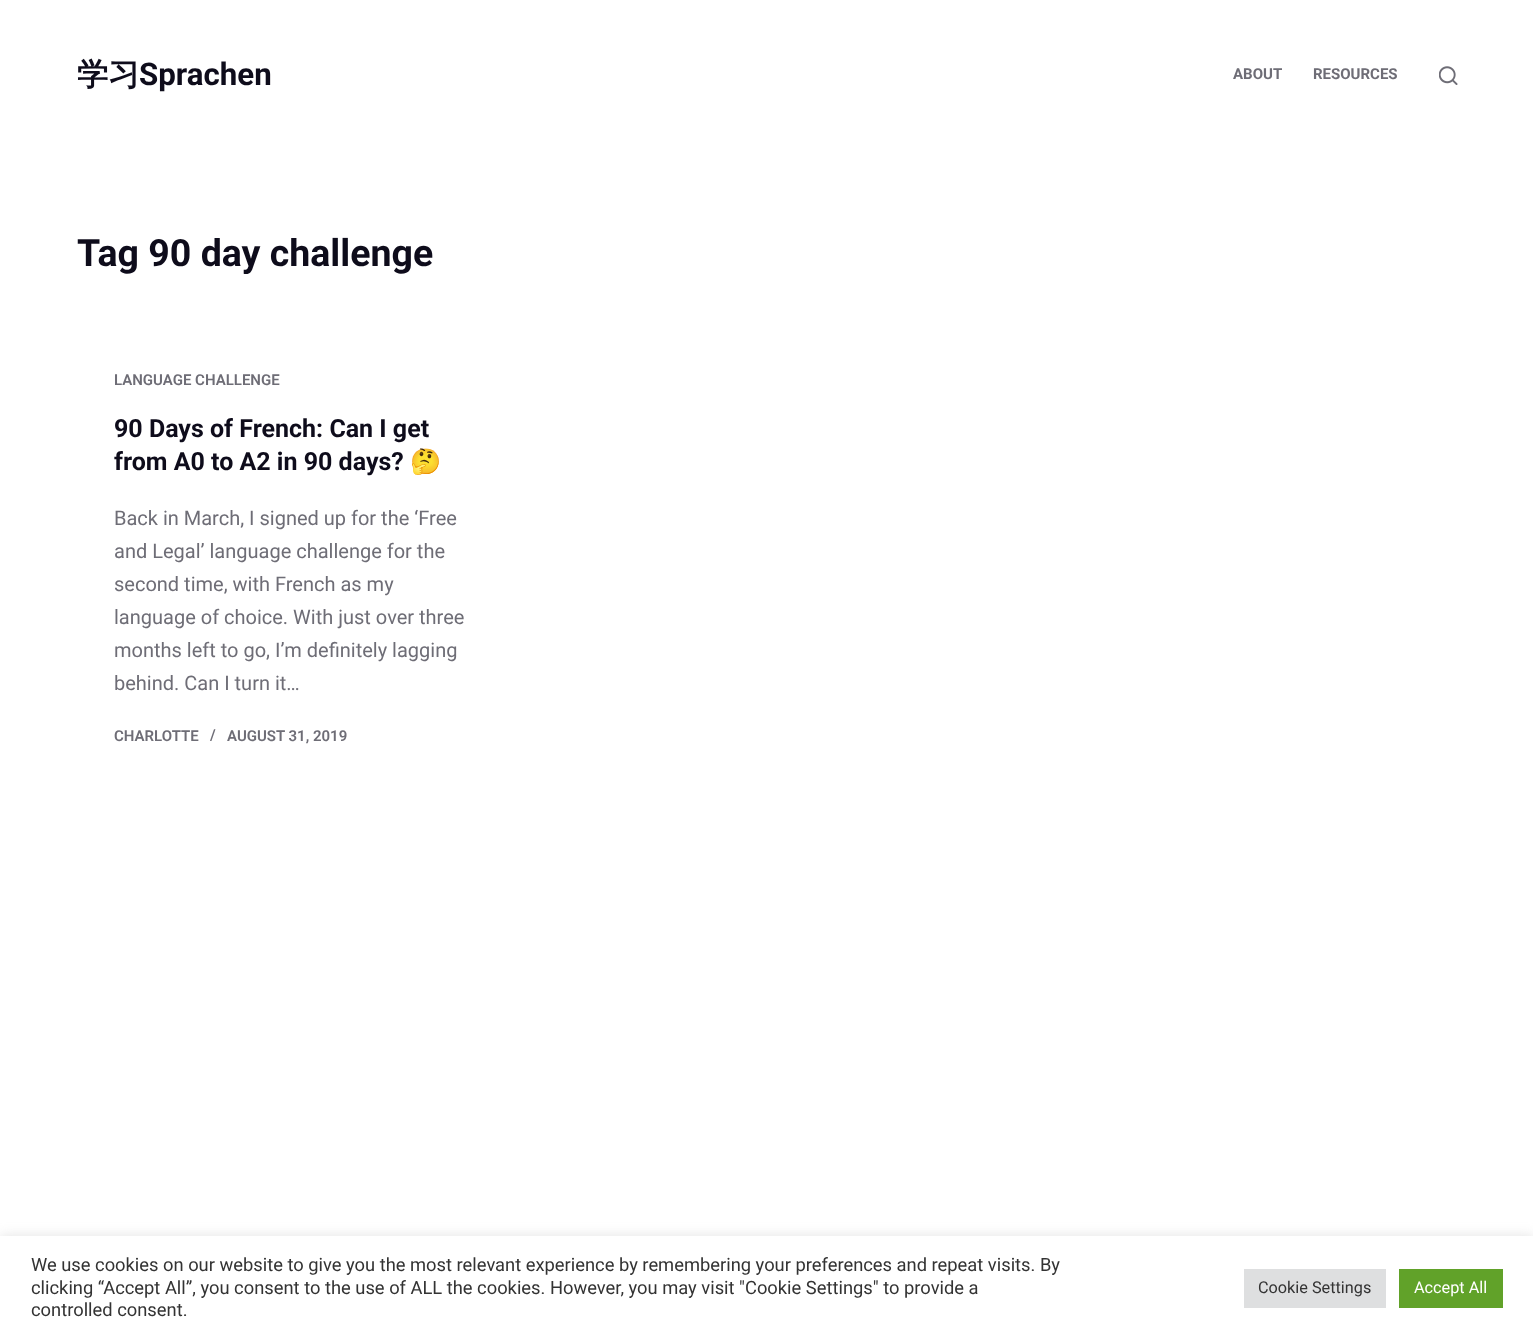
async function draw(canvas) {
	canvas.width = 1533;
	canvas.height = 1338;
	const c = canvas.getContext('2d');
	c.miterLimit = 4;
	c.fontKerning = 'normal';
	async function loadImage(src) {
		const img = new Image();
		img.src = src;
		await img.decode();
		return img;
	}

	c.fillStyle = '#fff';
	c.fillRect(0, 0, 1533, 1338);
	c.font = 'bold 31.25px WenQuanYi Zen Hei';
	c.fillStyle = '#0e0c1b';
	c.fillText('学习', 77, 85);
	c.font = 'bold 31.25px Roboto';
	c.fillText('Sprachen', 139, 85);
	c.font = 'bold 15px Roboto';
	c.fillStyle = '#6e6d76';
	c.fillText('ABOUT', 1233, 79);
	c.fillText('RESOURCES', 1313, 79);
	c.drawImage(await loadImage('img1.png'), 1439, 66, 19, 19);
	c.font = 'bold 37.5px Roboto';
	c.fillStyle = '#0e0c1b';
	c.fillText('Tag 90 day challenge', 77, 266);
	c.font = '600 15px Roboto';
	c.fillStyle = '#6e6d76';
	c.fillText('LANGUAGE CHALLENGE', 114, 385);
	c.font = 'bold 25px Roboto';
	c.fillStyle = '#0e0c1b';
	c.fillText('90 Days of French: Can I get', 114, 437);
	c.fillText('from A0 to A2 in 90 days?', 114, 470);
	c.font = 'bold 25px Noto Color Emoji';
	c.fillText('🤔', 410, 470);
	c.font = '20px Roboto';
	c.fillStyle = '#6e6d76';
	for (const [text, x, y] of [
		['Back in March, I signed up for the ‘Free', 114, 525],
		['and Legal’ language challenge for the', 114, 558],
		['second time, with French as my', 114, 591],
		['language of choice. With just over three', 114, 624],
		['months left to go, I’m definitely lagging', 114, 657],
		['behind. Can I turn it…', 114, 690],
	]) {
		c.fillText(text, x, y);
	}
	c.font = '600 15px Roboto';
	for (const [text, x, y] of [
		['CHARLOTTE', 114, 741],
		['/', 210, 740],
		['AUGUST 31, 2019', 227, 741],
	]) {
		c.fillText(text, x, y);
	}
	c.fillStyle = '#acabab4d';
	c.filter = 'blur(6px)';
	c.beginPath();
	c.rect(0, 1235, 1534, 103);
	c.fill();
	c.filter = 'none';
	c.fillStyle = '#fff';
	c.fillRect(0, 1236, 1533, 102);
	c.font = '18.33px Roboto';
	c.fillStyle = '#333';
	for (const [text, x, y] of [
		['We use cookies on our website to give you the most relevant experience by remembering your preferences and repeat visits. By', 31, 1271],
		['clicking “Accept All”, you consent to the use of ALL the cookies. However, you may visit "Cookie Settings" to provide a', 31, 1294],
		['controlled consent.', 31, 1316],
	]) {
		c.fillText(text, x, y);
	}
	c.fillStyle = '#dedfe0';
	c.fillRect(1244, 1269, 142, 39);
	c.font = '16.25px Roboto';
	c.fillStyle = '#333';
	c.fillText('Cookie Settings', 1258, 1293);
	c.fillStyle = '#61a229';
	c.fillRect(1399, 1269, 104, 39);
	c.fillStyle = '#fff';
	c.fillText('Accept All', 1414, 1293);
}

draw(document.querySelector('canvas'));
